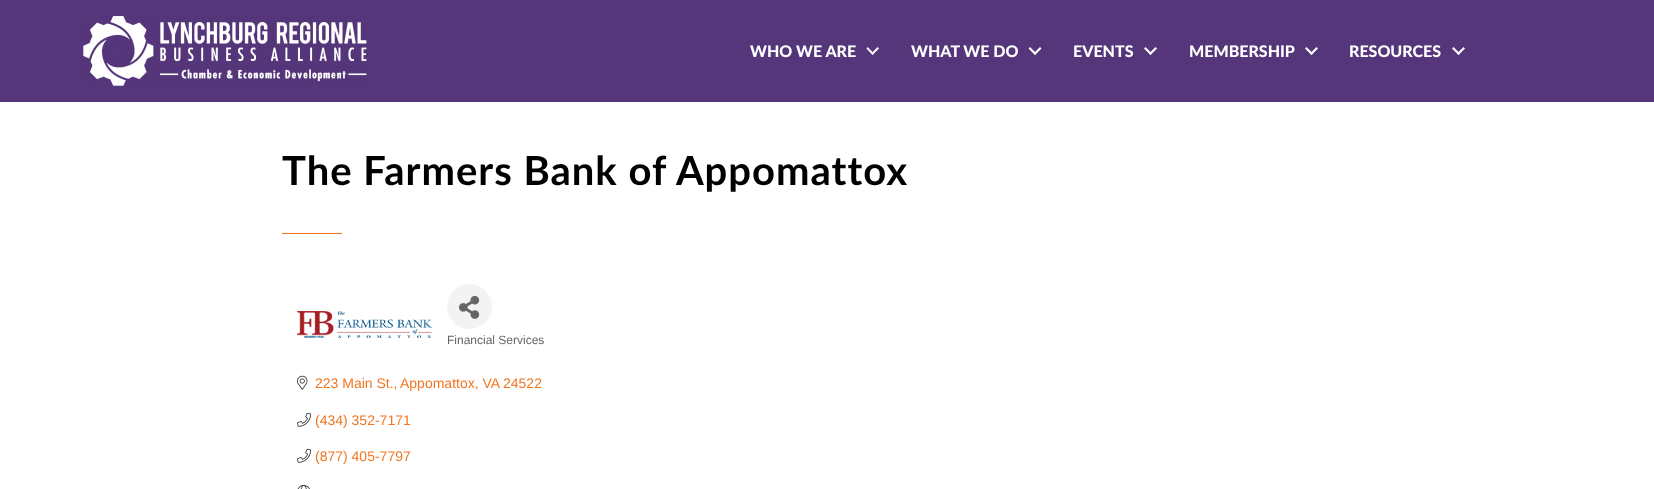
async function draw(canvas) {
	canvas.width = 1654;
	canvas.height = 489;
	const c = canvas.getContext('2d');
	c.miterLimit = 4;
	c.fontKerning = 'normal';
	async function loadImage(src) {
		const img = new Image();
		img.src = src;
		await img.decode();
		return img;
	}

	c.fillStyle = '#55367a';
	c.fillRect(0, 0, 1654, 489);
	c.drawImage(await loadImage('img1.png'), 83, 16, 284, 70);
	c.font = '900 16px Lato';
	c.fillStyle = '#fff';
	c.fillText('WHO WE ARE', 750, 57);
	c.beginPath();
	c.moveTo(877.5, 47);
	c.lineTo(879, 48.5);
	c.lineTo(872.5, 55);
	c.lineTo(871.5, 53.5);
	c.closePath();
	c.fill();
	c.beginPath();
	c.moveTo(867.5, 47);
	c.lineTo(874, 53.5);
	c.lineTo(872.5, 55);
	c.lineTo(866.5, 48.5);
	c.closePath();
	c.fill();
	c.fillText('WHAT WE DO', 911, 57);
	c.beginPath();
	c.moveTo(1040, 47);
	c.lineTo(1041.5, 48.5);
	c.lineTo(1035, 55);
	c.lineTo(1033.5, 53.5);
	c.closePath();
	c.fill();
	c.beginPath();
	c.moveTo(1030, 47);
	c.lineTo(1036.5, 53.5);
	c.lineTo(1035, 55);
	c.lineTo(1028.5, 48.5);
	c.closePath();
	c.fill();
	c.fillText('EVENTS', 1073, 57);
	c.beginPath();
	c.moveTo(1155.5, 47);
	c.lineTo(1157, 48.5);
	c.lineTo(1150.5, 55);
	c.lineTo(1149, 53.5);
	c.closePath();
	c.fill();
	c.beginPath();
	c.moveTo(1145.5, 47);
	c.lineTo(1152, 53.5);
	c.lineTo(1150.5, 55);
	c.lineTo(1144, 48.5);
	c.closePath();
	c.fill();
	c.fillText('MEMBERSHIP', 1189, 57);
	c.beginPath();
	c.moveTo(1316.5, 47);
	c.lineTo(1318, 48.5);
	c.lineTo(1311.5, 55);
	c.lineTo(1310, 53.5);
	c.closePath();
	c.fill();
	c.beginPath();
	c.moveTo(1306.5, 47);
	c.lineTo(1313, 53.5);
	c.lineTo(1311.5, 55);
	c.lineTo(1305, 48.5);
	c.closePath();
	c.fill();
	c.fillText('RESOURCES', 1349, 57);
	c.beginPath();
	c.moveTo(1463.5, 47);
	c.lineTo(1465, 48.5);
	c.lineTo(1458.5, 55);
	c.lineTo(1457, 53.5);
	c.closePath();
	c.fill();
	c.beginPath();
	c.moveTo(1453.5, 47);
	c.lineTo(1460, 53.5);
	c.lineTo(1458.5, 55);
	c.lineTo(1452, 48.5);
	c.closePath();
	c.fill();
	c.fillRect(0, 102, 1654, 387);
	c.letterSpacing = '1px';
	c.font = 'bold 40px Lato';
	c.fillStyle = '#000';
	c.fillText('The Farmers Bank of Appomattox', 282, 185);
	c.fillStyle = '#f07524';
	c.fillRect(282, 233, 60, 1);
	c.drawImage(await loadImage('img2.png'), 297, 311, 135, 27);
	c.fillStyle = '#f3f3f3';
	c.beginPath();
	c.arc(469.5, 306.5, 22.5, 0, 2 * Math.PI);
	c.fill();
	c.drawImage(await loadImage('img3.png'), 459, 295, 21, 24);
	c.letterSpacing = '0px';
	c.font = '12px Liberation Sans';
	c.fillStyle = '#656565';
	c.fillText('Financial Services', 447, 344);
	c.drawImage(await loadImage('img4.png'), 297, 375, 11, 15);
	c.font = '14px Liberation Sans';
	c.fillStyle = '#f07622';
	for (const [text, x, y] of [
		['223 Main St.,', 315, 388],
		['Appomattox, VA', 400, 388],
		['24522', 503, 388],
	]) {
		c.fillText(text, x, y);
	}
	c.drawImage(await loadImage('img5.png'), 297, 412, 14, 15);
	c.fillText('(434) 352-7171', 315, 425);
	c.drawImage(await loadImage('img5.png'), 297, 448, 14, 15);
	c.fillText('(877) 405-7797', 315, 461);
	c.drawImage(await loadImage('img6.png'), 297, 485, 13, 4);
}

draw(document.querySelector('canvas'));
